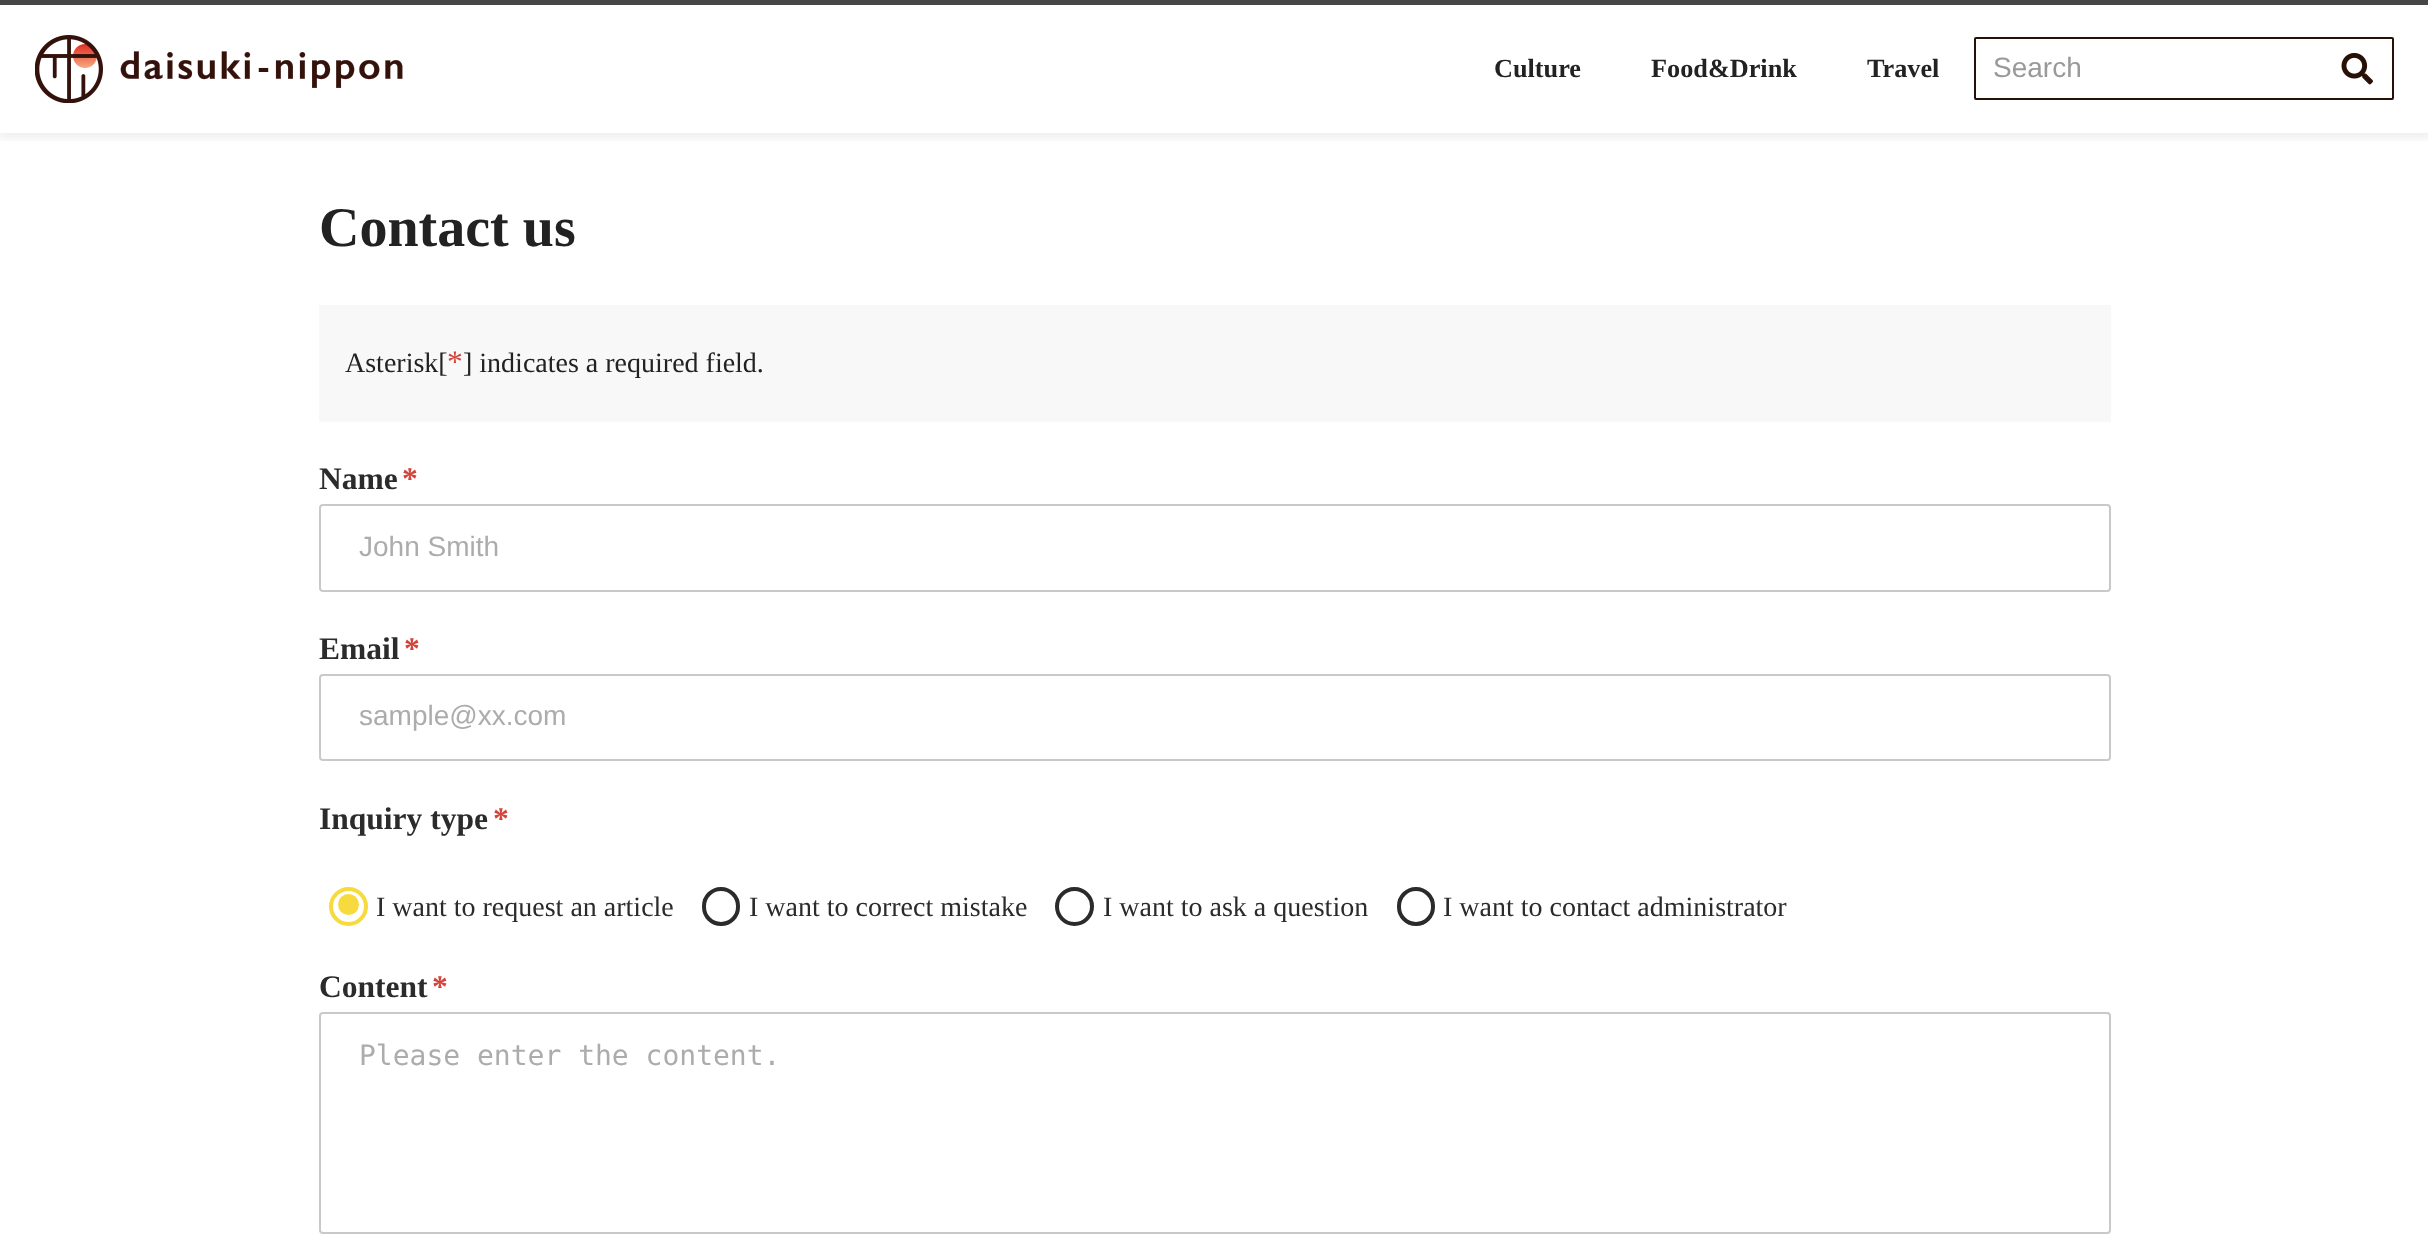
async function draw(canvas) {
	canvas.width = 2428;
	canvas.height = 1238;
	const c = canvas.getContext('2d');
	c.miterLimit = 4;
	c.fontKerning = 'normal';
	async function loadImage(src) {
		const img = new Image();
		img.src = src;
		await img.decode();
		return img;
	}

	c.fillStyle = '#fff';
	c.fillRect(0, 0, 2428, 1238);
	c.save();
	c.beginPath();
	c.rect(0, 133, 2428, 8);
	c.clip();
	c.fillStyle = '#00000012';
	c.filter = 'blur(6px)';
	c.beginPath();
	c.rect(-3, -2, 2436, 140);
	c.fill();
	c.filter = 'none';
	c.restore();
	c.fillStyle = '#464646';
	c.fillRect(0, 0, 2428, 5);
	c.drawImage(await loadImage('img1.png'), 35, 35, 368, 68);
	c.font = 'bold 26.25px Liberation Serif';
	c.fillStyle = '#222';
	for (const [text, x, y] of [
		['Culture', 1494, 77],
		['Food&Drink', 1651, 77],
		['Travel', 1867, 77],
	]) {
		c.fillText(text, x, y);
	}
	c.beginPath();
	c.roundRect(1975, 38, 418, 61, 1);
	c.strokeStyle = '#271006';
	c.lineWidth = 2;
	c.stroke();
	c.font = '28px Liberation Sans';
	c.fillStyle = '#999';
	c.fillText('Search', 1993, 77);
	c.drawImage(await loadImage('img2.png'), 2341, 52, 32, 33);
	c.font = 'bold 56px Liberation Serif';
	c.fillStyle = '#222';
	c.fillText('Contact us', 319, 246);
	c.fillStyle = '#f8f8f8';
	c.fillRect(319, 305, 1792, 117);
	c.font = '28px Liberation Serif';
	c.fillStyle = '#222';
	c.fillText('Asterisk[', 345, 372);
	c.font = '31.5px Liberation Serif';
	c.fillStyle = '#d34339';
	c.fillText('*', 447, 372);
	c.font = '28px Liberation Serif';
	c.fillStyle = '#222';
	c.fillText('] indicates a required field.', 463, 372);
	c.font = 'bold 31.5px Liberation Serif';
	c.fillStyle = '#2c2b2b';
	c.fillText('Name', 319, 489);
	c.fillStyle = '#d34339';
	c.fillText('*', 402, 489);
	c.beginPath();
	c.roundRect(320, 505, 1790, 86, 3);
	c.strokeStyle = '#c9c9c9';
	c.stroke();
	c.font = '28px Liberation Sans';
	c.fillStyle = '#acacac';
	c.fillText('John Smith', 359, 556);
	c.font = 'bold 31.5px Liberation Serif';
	c.fillStyle = '#2c2b2b';
	c.fillText('Email', 319, 659);
	c.fillStyle = '#d34339';
	c.fillText('*', 404, 659);
	c.beginPath();
	c.roundRect(320, 675, 1790, 85, 3);
	c.stroke();
	c.font = '28px Liberation Sans';
	c.fillStyle = '#acacac';
	c.fillText('sample@xx.com', 359, 725);
	c.font = 'bold 31.5px Liberation Serif';
	c.fillStyle = '#2c2b2b';
	c.fillText('Inquiry type', 319, 829);
	c.fillStyle = '#d34339';
	c.fillText('*', 493, 829);
	c.beginPath();
	c.arc(348.5, 906.5, 17.5, 0, 2 * Math.PI);
	c.strokeStyle = '#f7da3e';
	c.lineWidth = 4;
	c.stroke();
	c.fillStyle = '#f7da3e';
	c.beginPath();
	c.arc(348.5, 904.5, 10.5, 0, 2 * Math.PI);
	c.fill();
	c.font = '28px Liberation Serif';
	c.fillStyle = '#2c2b2b';
	c.fillText('I want to request an article', 376, 916);
	c.beginPath();
	c.roundRect(704, 889, 34, 35, 17);
	c.strokeStyle = '#2c2b2b';
	c.stroke();
	c.fillText('I want to correct mistake', 749, 916);
	c.beginPath();
	c.arc(1074.5, 906.5, 17.5, 0, 2 * Math.PI);
	c.stroke();
	c.fillText('I want to ask a question', 1103, 916);
	c.beginPath();
	c.roundRect(1399, 889, 34, 35, 17);
	c.stroke();
	c.fillText('I want to contact administrator', 1443, 916);
	c.font = 'bold 31.5px Liberation Serif';
	c.fillText('Content', 319, 997);
	c.fillStyle = '#d34339';
	c.fillText('*', 432, 997);
	c.beginPath();
	c.roundRect(320, 1013, 1790, 220, 3);
	c.strokeStyle = '#c9c9c9';
	c.lineWidth = 2;
	c.stroke();
	c.font = '28px DejaVu Sans Mono';
	c.fillStyle = '#acacac';
	c.fillText('Please enter the content.', 359, 1065);
}

draw(document.querySelector('canvas'));
